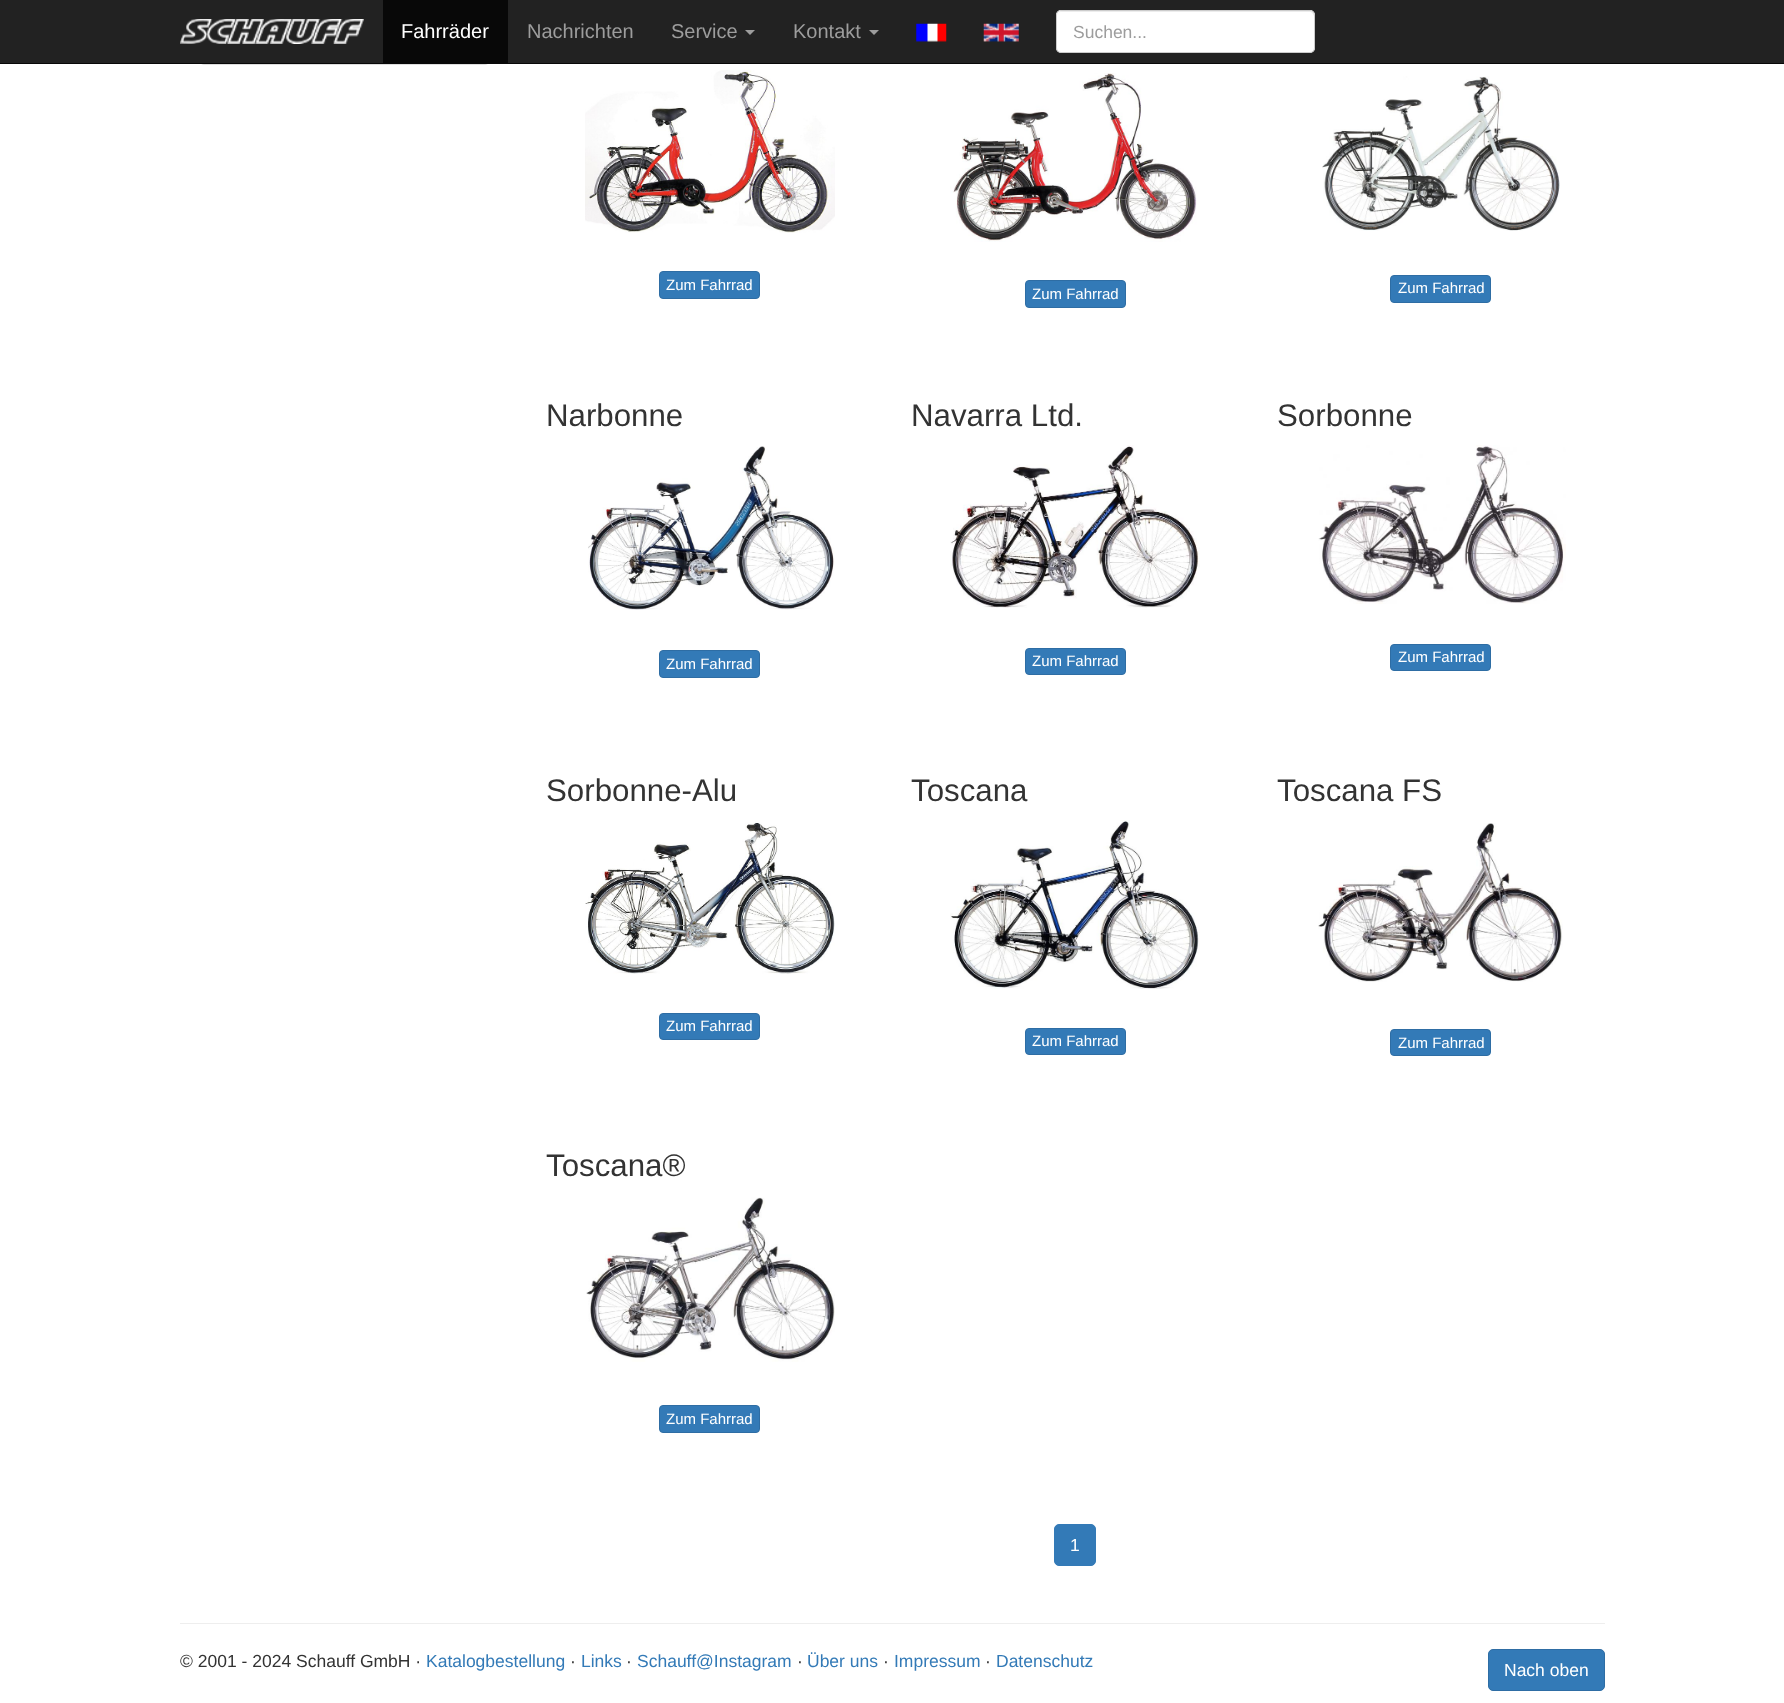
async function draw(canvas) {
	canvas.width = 1784;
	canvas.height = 1703;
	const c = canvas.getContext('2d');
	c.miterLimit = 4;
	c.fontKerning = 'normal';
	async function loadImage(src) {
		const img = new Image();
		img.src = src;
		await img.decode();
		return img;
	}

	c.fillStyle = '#fff';
	c.fillRect(0, 0, 1784, 1703);
	c.beginPath();
	c.roundRect(199.5, 13.5, 290, 51, [0, 0, 4.5, 4.5]);
	c.strokeStyle = '#ddd';
	c.stroke();
	c.fillStyle = '#222';
	c.fillRect(0, 0, 1784, 63);
	c.fillStyle = '#080808';
	c.fillRect(0, 63, 1784, 1);
	c.drawImage(await loadImage('img1.png'), 180, 19, 184, 25);
	c.fillRect(383, 0, 125, 63);
	c.font = '20px Liberation Sans';
	c.fillStyle = '#fff';
	c.fillText('Fahrräder', 401, 38);
	c.fillStyle = '#9d9d9d';
	c.fillText('Nachrichten', 527, 38);
	c.fillText('Service', 671, 38);
	c.beginPath();
	c.moveTo(745, 30);
	c.lineTo(755, 30);
	c.lineTo(750, 35);
	c.closePath();
	c.fill();
	c.fillText('Kontakt', 793, 38);
	c.beginPath();
	c.moveTo(869, 30);
	c.lineTo(879, 30);
	c.lineTo(874, 35);
	c.closePath();
	c.fill();
	c.drawImage(await loadImage('img2.png'), 916, 23, 31, 19);
	c.drawImage(await loadImage('img3.png'), 983, 23, 36, 19);
	c.fillStyle = '#fff';
	c.beginPath();
	c.roundRect(1056, 10, 259, 43, 5);
	c.fill();
	c.fillStyle = '#ececec';
	c.beginPath();
	c.moveTo(1061, 12);
	c.lineTo(1311, 12);
	c.lineTo(1313, 14);
	c.lineTo(1314, 16);
	c.lineTo(1314, 15);
	c.bezierCurveTo(1314, 13, 1312, 11, 1310, 11);
	c.lineTo(1062, 11);
	c.bezierCurveTo(1060, 11, 1058, 13, 1058, 15);
	c.lineTo(1058, 16);
	c.bezierCurveTo(1058, 14, 1059, 12, 1061, 12);
	c.closePath();
	c.fill();
	c.beginPath();
	c.roundRect(1056.5, 10.5, 258, 42, 4.5);
	c.strokeStyle = '#ccc';
	c.stroke();
	c.font = '17.5px Liberation Sans';
	c.fillStyle = '#9d9d9d';
	c.fillText('Suchen...', 1073, 38);
	c.drawImage(await loadImage('img4.png'), 585, 69, 250, 164);
	c.fillStyle = '#337ab7';
	c.beginPath();
	c.roundRect(659.5, 271.5, 100, 27, 3.5);
	c.fill();
	c.strokeStyle = '#2e6da4';
	c.stroke();
	c.font = '15px Liberation Sans';
	c.fillStyle = '#fff';
	c.fillText('Zum Fahrrad', 666, 290);
	c.drawImage(await loadImage('img5.png'), 950, 73, 247, 169);
	c.fillStyle = '#337ab7';
	c.beginPath();
	c.roundRect(1025.5, 280.5, 100, 27, 3.5);
	c.fill();
	c.stroke();
	c.fillStyle = '#fff';
	c.fillText('Zum Fahrrad', 1032, 299);
	c.drawImage(await loadImage('img6.png'), 1322, 76, 238, 155);
	c.fillStyle = '#337ab7';
	c.beginPath();
	c.roundRect(1390.5, 275.5, 100, 27, 3.5);
	c.fill();
	c.stroke();
	c.fillStyle = '#fff';
	c.fillText('Zum Fahrrad', 1398, 293);
	c.font = '31.25px Liberation Sans';
	c.fillStyle = '#333';
	c.fillText('Narbonne', 546, 426);
	c.drawImage(await loadImage('img7.png'), 588, 446, 247, 164);
	c.fillStyle = '#337ab7';
	c.beginPath();
	c.roundRect(659.5, 650.5, 100, 27, 3.5);
	c.fill();
	c.stroke();
	c.font = '15px Liberation Sans';
	c.fillStyle = '#fff';
	c.fillText('Zum Fahrrad', 666, 669);
	c.font = '31.25px Liberation Sans';
	c.fillStyle = '#333';
	c.fillText('Navarra Ltd.', 911, 426);
	c.drawImage(await loadImage('img8.png'), 950, 445, 250, 163);
	c.fillStyle = '#337ab7';
	c.beginPath();
	c.roundRect(1025.5, 648.5, 100, 26, 3.5);
	c.fill();
	c.stroke();
	c.font = '15px Liberation Sans';
	c.fillStyle = '#fff';
	c.fillText('Zum Fahrrad', 1032, 666);
	c.font = '31.25px Liberation Sans';
	c.fillStyle = '#333';
	c.fillText('Sorbonne', 1277, 426);
	c.drawImage(await loadImage('img9.png'), 1318, 445, 248, 159);
	c.fillStyle = '#337ab7';
	c.beginPath();
	c.roundRect(1390.5, 644.5, 100, 26, 3.5);
	c.fill();
	c.stroke();
	c.font = '15px Liberation Sans';
	c.fillStyle = '#fff';
	c.fillText('Zum Fahrrad', 1398, 662);
	c.font = '31.25px Liberation Sans';
	c.fillStyle = '#333';
	c.fillText('Sorbonne-Alu', 546, 801);
	c.drawImage(await loadImage('img10.png'), 585, 822, 250, 152);
	c.fillStyle = '#337ab7';
	c.beginPath();
	c.roundRect(659.5, 1013.5, 100, 26, 3.5);
	c.fill();
	c.stroke();
	c.font = '15px Liberation Sans';
	c.fillStyle = '#fff';
	c.fillText('Zum Fahrrad', 666, 1031);
	c.font = '31.25px Liberation Sans';
	c.fillStyle = '#333';
	c.fillText('Toscana', 911, 801);
	c.drawImage(await loadImage('img11.png'), 950, 820, 250, 169);
	c.fillStyle = '#337ab7';
	c.beginPath();
	c.roundRect(1025.5, 1028.5, 100, 26, 3.5);
	c.fill();
	c.stroke();
	c.font = '15px Liberation Sans';
	c.fillStyle = '#fff';
	c.fillText('Zum Fahrrad', 1032, 1046);
	c.font = '31.25px Liberation Sans';
	c.fillStyle = '#333';
	c.fillText('Toscana FS', 1277, 801);
	c.drawImage(await loadImage('img12.png'), 1318, 823, 245, 159);
	c.fillStyle = '#337ab7';
	c.beginPath();
	c.roundRect(1390.5, 1029.5, 100, 26, 3.5);
	c.fill();
	c.stroke();
	c.font = '15px Liberation Sans';
	c.fillStyle = '#fff';
	c.fillText('Zum Fahrrad', 1398, 1048);
	c.font = '31.25px Liberation Sans';
	c.fillStyle = '#333';
	c.fillText('Toscana®', 546, 1176);
	c.drawImage(await loadImage('img13.png'), 586, 1197, 249, 165);
	c.fillStyle = '#337ab7';
	c.beginPath();
	c.roundRect(659.5, 1405.5, 100, 27, 3.5);
	c.fill();
	c.stroke();
	c.font = '15px Liberation Sans';
	c.fillStyle = '#fff';
	c.fillText('Zum Fahrrad', 666, 1424);
	c.fillStyle = '#337ab7';
	c.beginPath();
	c.roundRect(1054.5, 1524.5, 41, 41, 4.5);
	c.fill();
	c.strokeStyle = '#337ab7';
	c.stroke();
	c.font = '17.5px Liberation Sans';
	c.fillStyle = '#fff';
	c.fillText('1', 1070, 1551);
	c.fillStyle = '#eee';
	c.fillRect(180, 1623, 1425, 1);
	c.fillStyle = '#333';
	c.fillText('© 2001 - 2024 Schauff GmbH ·', 180, 1667);
	c.fillStyle = '#337ab7';
	c.fillText('Katalogbestellung', 426, 1667);
	c.fillStyle = '#333';
	c.fillText('·', 570, 1667);
	c.fillStyle = '#337ab7';
	c.fillText('Links', 581, 1667);
	c.fillStyle = '#333';
	c.fillText('·', 626, 1667);
	c.fillStyle = '#337ab7';
	c.fillText('Schauff@Instagram', 637, 1667);
	c.fillStyle = '#333';
	c.fillText('·', 797, 1667);
	c.fillStyle = '#337ab7';
	c.fillText('Über uns', 807, 1667);
	c.fillStyle = '#333';
	c.fillText('·', 883, 1667);
	c.fillStyle = '#337ab7';
	c.fillText('Impressum', 894, 1667);
	c.fillStyle = '#333';
	c.fillText('·', 985, 1667);
	c.fillStyle = '#337ab7';
	c.fillText('Datenschutz', 996, 1667);
	c.beginPath();
	c.roundRect(1488.5, 1649.5, 116, 41, 4.5);
	c.fill();
	c.strokeStyle = '#2e6da4';
	c.stroke();
	c.fillStyle = '#fff';
	c.fillText('Nach oben', 1504, 1676);
}

draw(document.querySelector('canvas'));
